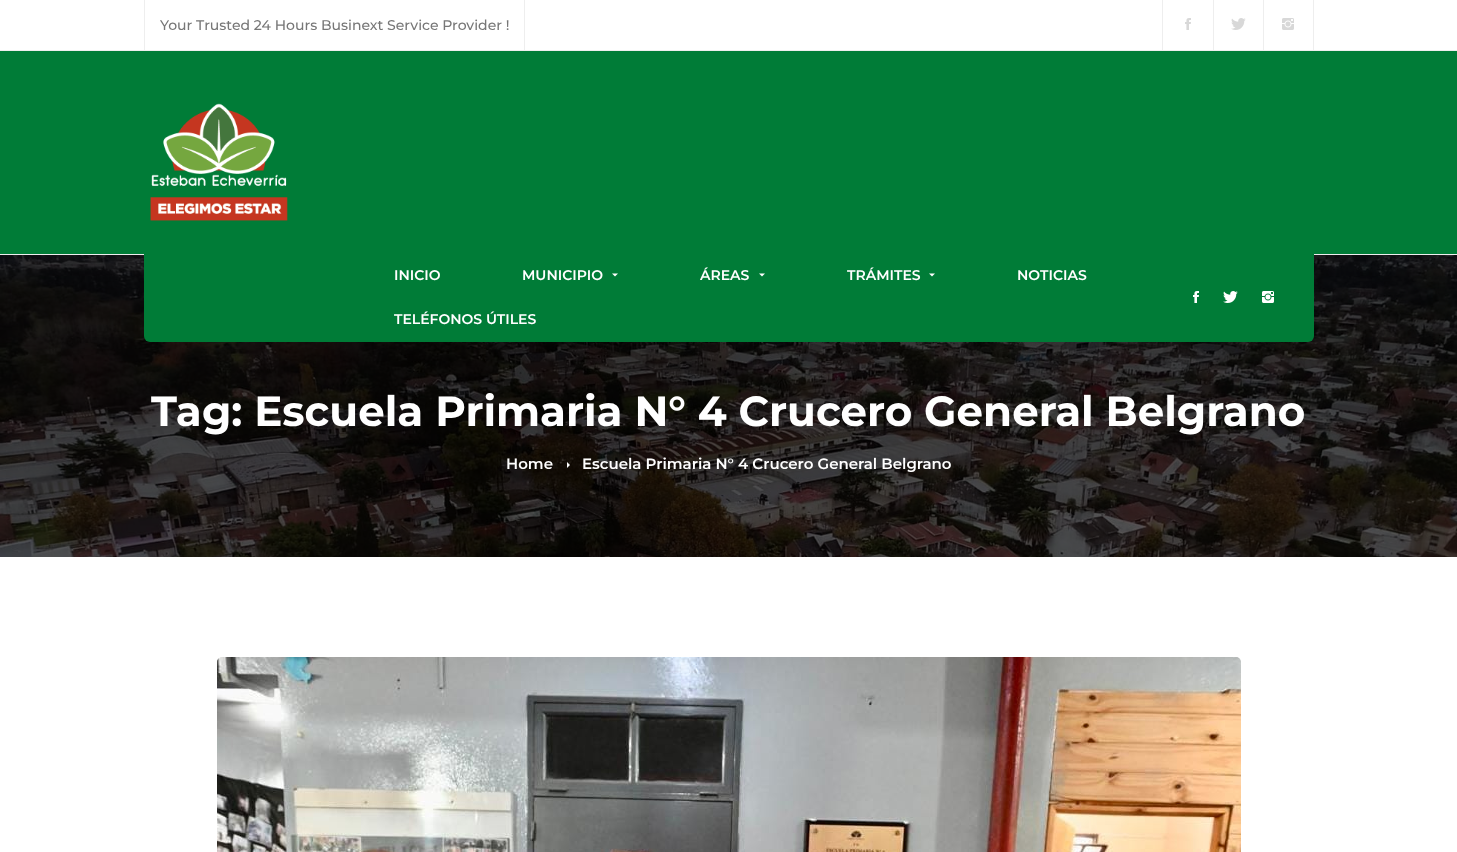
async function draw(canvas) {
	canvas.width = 1457;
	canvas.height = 852;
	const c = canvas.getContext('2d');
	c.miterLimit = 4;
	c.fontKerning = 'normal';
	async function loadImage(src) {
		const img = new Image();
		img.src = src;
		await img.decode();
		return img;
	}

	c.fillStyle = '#fff';
	c.fillRect(0, 0, 1457, 852);
	for (const [x, y, w, h, color] of [
		[0, 50, 1457, 1, '#eee'],
		[524, 0, 1, 50, '#eee'],
		[144, 0, 1, 50, '#eee'],
	]) {
		c.fillStyle = color;
		c.fillRect(x, y, w, h);
	}
	c.font = '500 14px Montserrat';
	c.fillStyle = '#777';
	c.fillText('Your Trusted 24 Hours Businext Service Provider !', 160, 30);
	c.fillStyle = '#eee';
	c.fillRect(1313, 0, 1, 50);
	c.fillRect(1162, 0, 1, 50);
	c.drawImage(await loadImage('img1.png'), 1185, 18, 6, 12);
	c.fillRect(1213, 0, 1, 50);
	c.drawImage(await loadImage('img2.png'), 1231, 18, 15, 12);
	c.fillRect(1263, 0, 1, 50);
	c.drawImage(await loadImage('img3.png'), 1282, 18, 12, 12);
	c.fillStyle = '#007c37';
	c.fillRect(0, 51, 1457, 203);
	c.fillStyle = '#eee';
	c.fillRect(0, 254, 1457, 1);
	c.drawImage(await loadImage('img4.png'), 150, 103, 138, 118);
	c.drawImage(await loadImage('img8.png'), 0, 255, 1457, 302);
	c.fillStyle = '#007c37';
	c.beginPath();
	c.roundRect(144, 254, 1170, 88, [0, 0, 6, 6]);
	c.fill();
	c.font = '600 14px Montserrat';
	c.fillStyle = '#fff';
	c.fillText('INICIO', 394, 280);
	c.fillText('MUNICIPIO', 522, 280);
	c.beginPath();
	c.moveTo(612, 273.5);
	c.lineTo(618, 273.5);
	c.lineTo(615, 276.5);
	c.closePath();
	c.fill();
	c.fillText('ÁREAS', 700, 280);
	c.beginPath();
	c.moveTo(759, 273.5);
	c.lineTo(765, 273.5);
	c.lineTo(762, 276.5);
	c.closePath();
	c.fill();
	c.fillText('TRÁMITES', 847, 280);
	c.beginPath();
	c.moveTo(929, 273.5);
	c.lineTo(935, 273.5);
	c.lineTo(932, 276.5);
	c.closePath();
	c.fill();
	c.fillText('NOTICIAS', 1017, 280);
	c.fillText('TELÉFONOS ÚTILES', 394, 324);
	c.drawImage(await loadImage('img5.png'), 1193, 291, 6, 12);
	c.drawImage(await loadImage('img6.png'), 1223, 291, 15, 12);
	c.drawImage(await loadImage('img7.png'), 1262, 291, 12, 12);
	c.font = 'bold 42px Montserrat';
	c.fillText('Tag: Escuela Primaria N° 4 Crucero General Belgrano', 151, 426);
	c.font = '600 15px Montserrat';
	c.fillText('Home', 506, 469);
	c.beginPath();
	c.moveTo(567, 462);
	c.lineTo(570, 465);
	c.lineTo(567, 468);
	c.closePath();
	c.fill();
	c.fillText('Escuela Primaria N° 4 Crucero General Belgrano', 582, 469);
	c.drawImage(await loadImage('img9.png'), 217, 657, 1024, 195);
}

draw(document.querySelector('canvas'));
